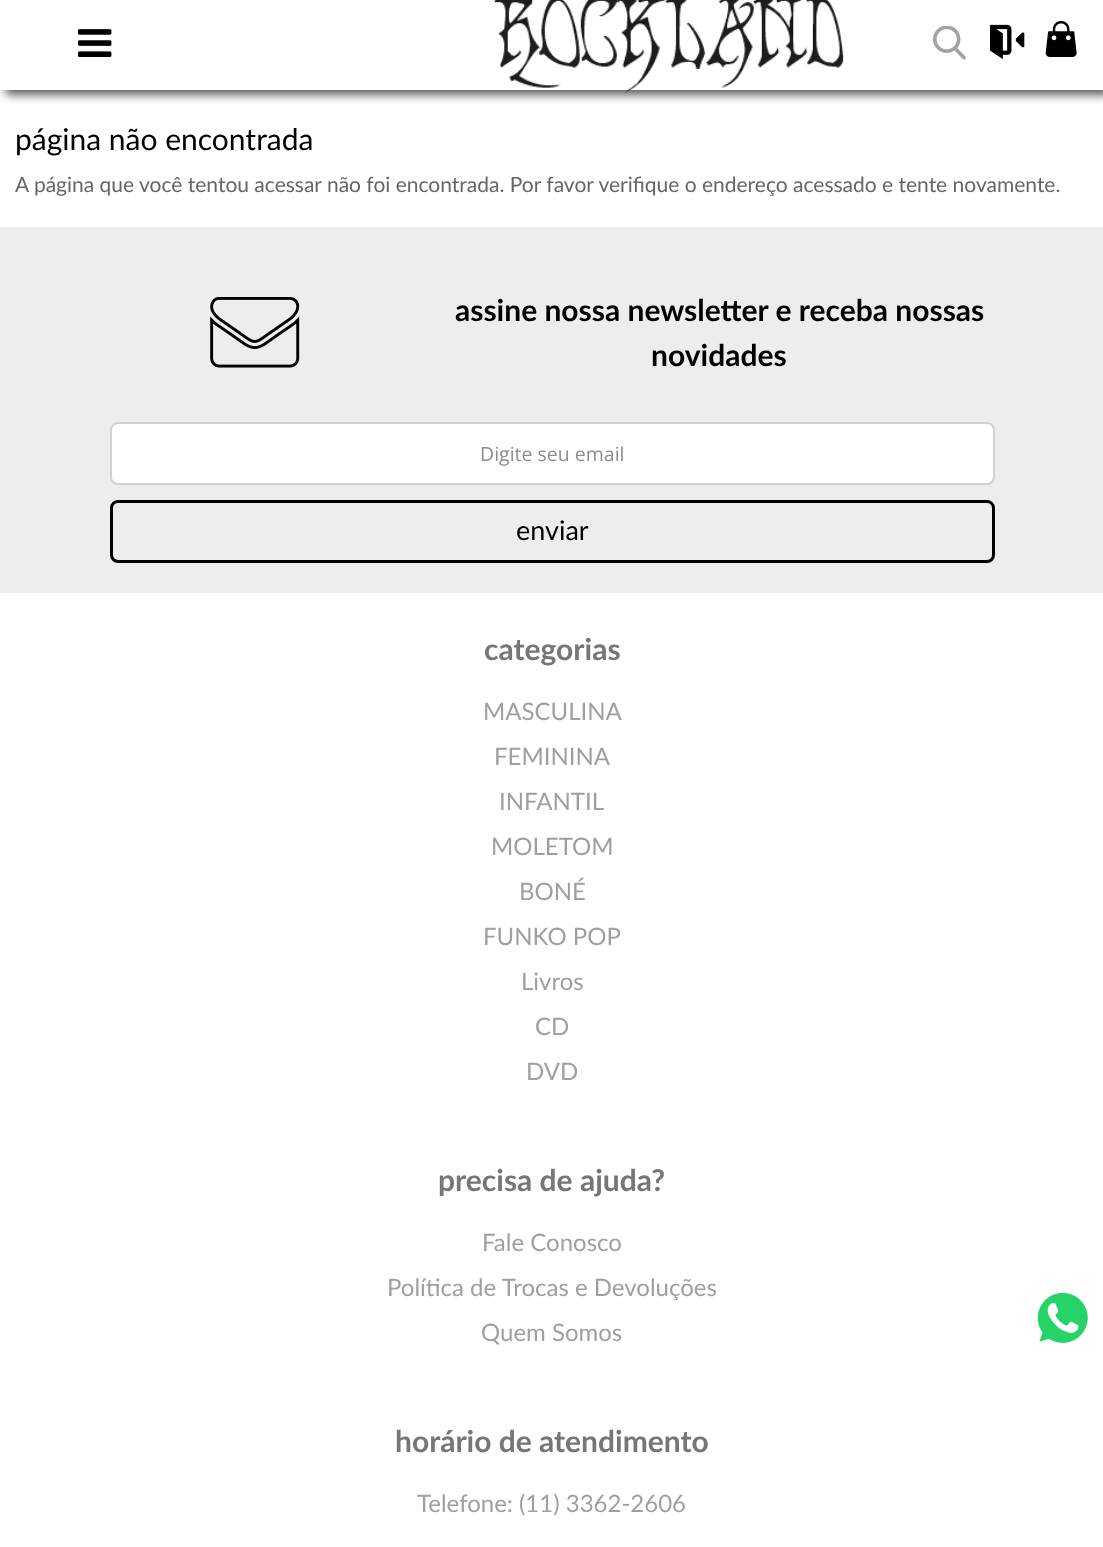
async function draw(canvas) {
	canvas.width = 1103;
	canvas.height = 1547;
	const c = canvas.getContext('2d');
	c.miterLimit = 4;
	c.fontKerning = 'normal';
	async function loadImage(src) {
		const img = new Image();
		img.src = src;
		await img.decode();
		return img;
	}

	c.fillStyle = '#fff';
	c.fillRect(0, 0, 1103, 1547);
	c.save();
	c.beginPath();
	c.rect(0, 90, 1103, 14);
	c.clip();
	c.fillStyle = '#000000a3';
	c.filter = 'blur(5px)';
	c.beginPath();
	c.rect(6, 5, 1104, 90);
	c.fill();
	c.filter = 'none';
	c.restore();
	c.drawImage(await loadImage('img1.png'), 933, 26, 33, 34);
	c.drawImage(await loadImage('img2.png'), 990, 24, 35, 35);
	c.drawImage(await loadImage('img3.png'), 1045, 21, 32, 36);
	c.drawImage(await loadImage('img4.png'), 78, 29, 34, 28);
	c.drawImage(await loadImage('img5.png'), 493, 0, 351, 93);
	c.font = '30px Lato';
	c.fillStyle = '#000';
	c.fillText('página não encontrada', 15, 150);
	c.font = '21px Lato';
	c.fillStyle = '#666';
	c.fillText('A página que você tentou acessar não foi encontrada. Por favor verifique o endereço acessado e tente novamente.', 15, 192);
	c.fillStyle = '#ededed';
	c.fillRect(0, 227, 1103, 366);
	c.drawImage(await loadImage('img6.png'), 210, 297, 90, 71);
	c.font = 'bold 30px Lato';
	c.fillStyle = '#000';
	c.fillText('assine nossa newsletter e receba nossas', 455, 321);
	c.fillText('novidades', 651, 366);
	c.fillStyle = '#fff';
	c.beginPath();
	c.roundRect(111, 423, 883, 61, 7);
	c.fill();
	c.strokeStyle = '#d1d1d1';
	c.lineWidth = 2;
	c.stroke();
	c.font = '19.5px Open Sans';
	c.fillStyle = '#8d8d8d';
	c.fillText('Digite seu email', 480, 461);
	c.beginPath();
	c.roundRect(111.5, 501.5, 882, 60, 6.5);
	c.strokeStyle = '#000';
	c.lineWidth = 3;
	c.stroke();
	c.font = '27px Lato';
	c.fillStyle = '#000';
	c.fillText('enviar', 516, 540);
	c.font = 'bold 30px Lato';
	c.fillStyle = '#767676';
	c.fillText('categorias', 484, 660);
	c.font = '24px Lato';
	c.fillStyle = '#9f9f9f';
	for (const [text, x, y] of [
		['MASCULINA', 483, 720],
		['FEMININA', 494, 765],
		['INFANTIL', 499, 810],
		['MOLETOM', 491, 855],
		['BONÉ', 519, 900],
		['FUNKO POP', 483, 945],
		['Livros', 521, 990],
		['CD', 535, 1035],
		['DVD', 526, 1080],
	]) {
		c.fillText(text, x, y);
	}
	c.font = 'bold 30px Lato';
	c.fillStyle = '#767676';
	c.fillText('precisa de ajuda?', 438, 1191);
	c.font = '24px Lato';
	c.fillStyle = '#9f9f9f';
	for (const [text, x, y] of [
		['Fale Conosco', 482, 1251],
		['Política de Trocas e Devoluções', 387, 1296],
		['Quem Somos', 481, 1341],
	]) {
		c.fillText(text, x, y);
	}
	c.font = 'bold 30px Lato';
	c.fillStyle = '#767676';
	c.fillText('horário de atendimento', 395, 1452);
	c.font = '24px Lato';
	c.fillStyle = '#9f9f9f';
	c.fillText('Telefone: (11) 3362-2606', 417, 1512);
	c.drawImage(await loadImage('img7.png'), 1037, 1292, 51, 51);
}

draw(document.querySelector('canvas'));
